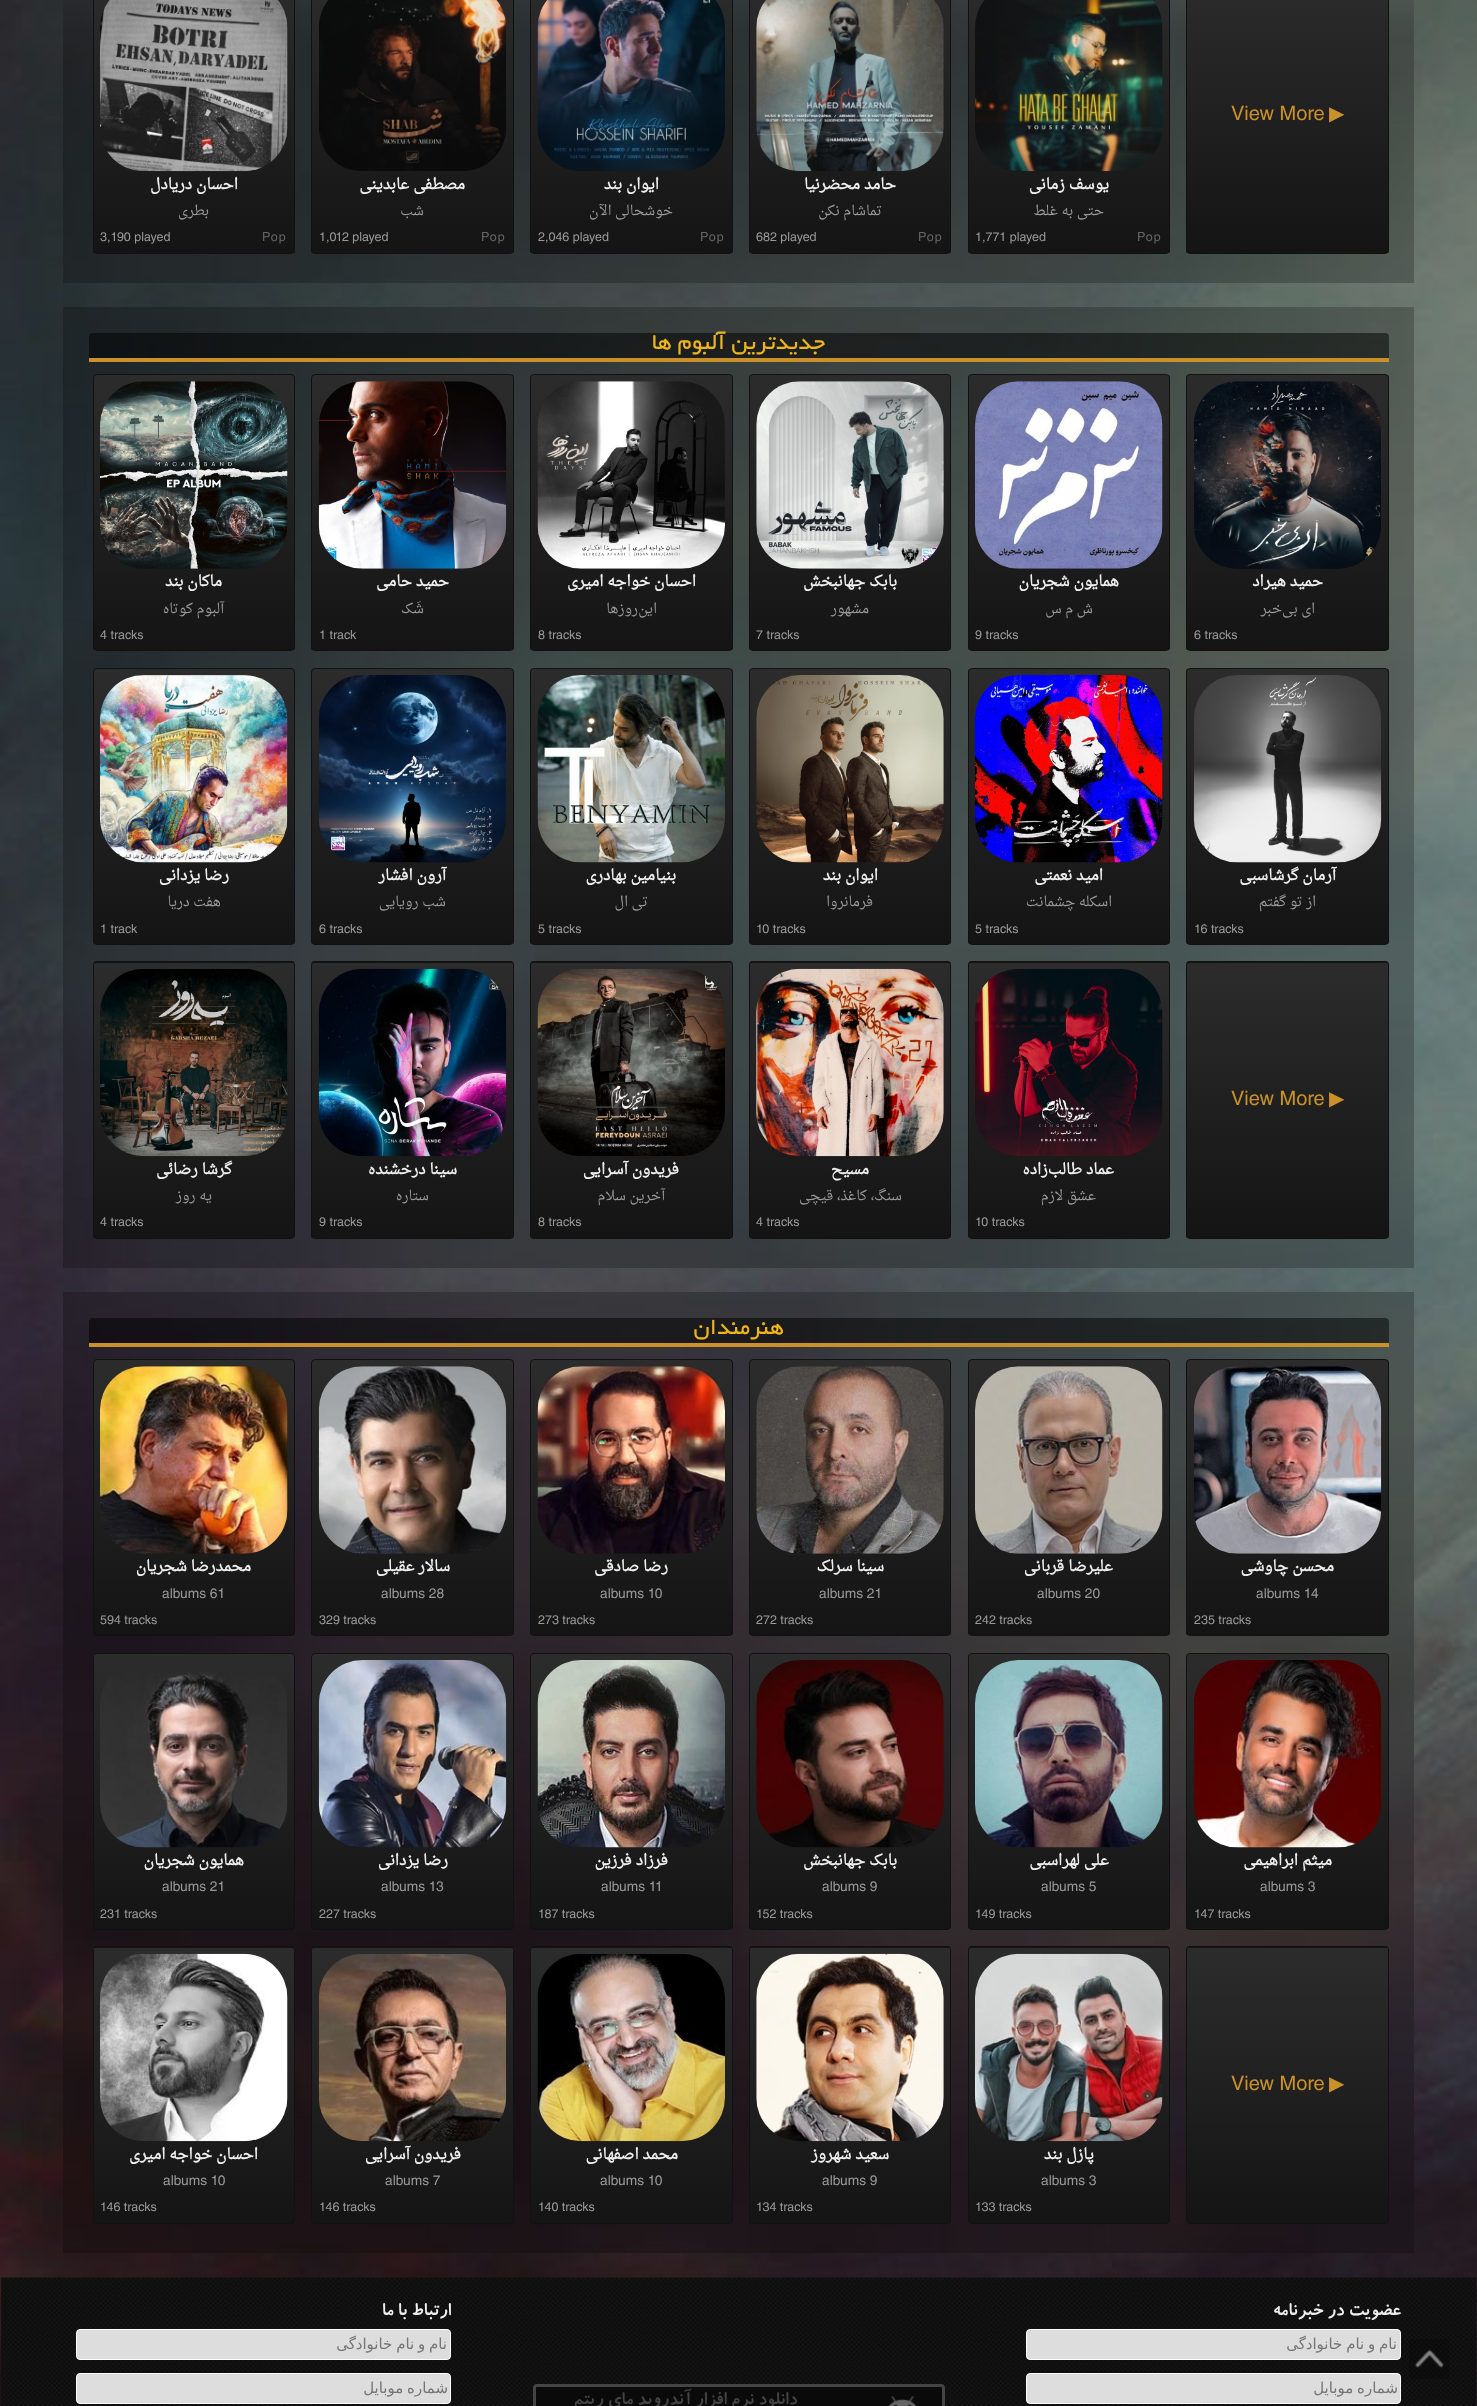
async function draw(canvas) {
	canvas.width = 1477;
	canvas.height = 2406;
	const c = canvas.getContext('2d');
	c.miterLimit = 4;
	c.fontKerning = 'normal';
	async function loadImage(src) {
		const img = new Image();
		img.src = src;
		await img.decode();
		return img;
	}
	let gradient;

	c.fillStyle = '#fff';
	c.fillRect(0, 0, 1477, 2406);
	c.drawImage(await loadImage('img1.png'), 0, 0, 1477, 2406);
	c.drawImage(await loadImage('img45.png'), 1, 2277, 1476, 129);
	c.drawImage(await loadImage('img2.png'), 1409, 2339, 40, 40);
	c.drawImage(await loadImage('img3.png'), 63, 0, 1351, 283);
	c.save();
	c.beginPath();
	c.roundRect(1186, -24, 203, 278, 4);
	c.clip();
	gradient = c.createLinearGradient(1288, -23, 1288, 253);
	gradient.addColorStop(0, '#2c2c2c');
	gradient.addColorStop(1, '#141414');
	c.fillStyle = gradient;
	c.fillRect(1186, 0, 203, 253);
	c.restore();
	c.beginPath();
	c.roundRect(1186.5, -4.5, 202, 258, 3.5);
	c.strokeStyle = '#111';
	c.stroke();
	c.font = '20px DejaVu Sans';
	c.fillStyle = '#ca912a';
	c.fillText('▶', 1329, 120);
	c.font = '20px Helvetica';
	c.fillText('View More', 1231, 120);
	c.save();
	c.beginPath();
	c.roundRect(968, -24, 202, 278, 4);
	c.clip();
	gradient = c.createLinearGradient(1069, -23, 1069, 253);
	gradient.addColorStop(0, '#2c2c2c');
	gradient.addColorStop(1, '#141414');
	c.fillStyle = gradient;
	c.fillRect(968, 0, 202, 253);
	c.restore();
	c.beginPath();
	c.roundRect(968.5, -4.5, 201, 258, 3.5);
	c.stroke();
	c.drawImage(await loadImage('img4.png'), 975, 0, 188, 172);
	c.direction = 'rtl';
	c.font = 'bold 15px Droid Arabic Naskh';
	c.fillStyle = '#eee';
	c.fillText('یوسف زمانی', 1109, 189);
	c.font = '13.75px Droid Arabic Naskh';
	c.fillStyle = '#999';
	c.fillText('حتی به غلط', 1104, 215);
	c.letterSpacing = '1px';
	c.direction = 'ltr';
	c.font = '12.5px Helvetica';
	c.fillStyle = '#666';
	c.fillText('Pop', 1137, 241);
	c.letterSpacing = '0px';
	c.fillStyle = '#999';
	c.fillText('1,771 played', 975, 241);
	c.save();
	c.beginPath();
	c.roundRect(749, -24, 202, 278, 4);
	c.clip();
	gradient = c.createLinearGradient(850, -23, 850, 253);
	gradient.addColorStop(0, '#2c2c2c');
	gradient.addColorStop(1, '#141414');
	c.fillStyle = gradient;
	c.fillRect(749, 0, 202, 253);
	c.restore();
	c.beginPath();
	c.roundRect(749.5, -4.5, 201, 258, 3.5);
	c.stroke();
	c.drawImage(await loadImage('img5.png'), 756, 0, 188, 172);
	c.direction = 'rtl';
	c.font = 'bold 15px Droid Arabic Naskh';
	c.fillStyle = '#eee';
	c.fillText('حامد محضرنیا', 896, 189);
	c.font = '13.75px Droid Arabic Naskh';
	c.fillStyle = '#999';
	c.fillText('تماشام نکن', 882, 215);
	c.letterSpacing = '1px';
	c.direction = 'ltr';
	c.font = '12.5px Helvetica';
	c.fillStyle = '#666';
	c.fillText('Pop', 918, 241);
	c.save();
	c.beginPath();
	c.rect(756, 226, 60, 25);
	c.clip();
	c.letterSpacing = '0px';
	c.fillStyle = '#999';
	c.fillText('682 played', 756, 241);
	c.restore();
	c.save();
	c.beginPath();
	c.roundRect(530, -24, 203, 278, 4);
	c.clip();
	gradient = c.createLinearGradient(631, -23, 631, 253);
	gradient.addColorStop(0, '#2c2c2c');
	gradient.addColorStop(1, '#141414');
	c.fillStyle = gradient;
	c.fillRect(530, 0, 203, 253);
	c.restore();
	c.beginPath();
	c.roundRect(530.5, -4.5, 202, 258, 3.5);
	c.stroke();
	c.drawImage(await loadImage('img6.png'), 537, 0, 188, 171);
	c.letterSpacing = '0px';
	c.direction = 'rtl';
	c.font = 'bold 15px Droid Arabic Naskh';
	c.fillStyle = '#eee';
	c.fillText('ایوان بند', 659, 189);
	c.font = '13.75px Droid Arabic Naskh';
	c.fillStyle = '#999';
	c.fillText('خوشحالی الآن', 673, 215);
	c.letterSpacing = '1px';
	c.direction = 'ltr';
	c.font = '12.5px Helvetica';
	c.fillStyle = '#666';
	c.fillText('Pop', 700, 241);
	c.letterSpacing = '0px';
	c.fillStyle = '#999';
	c.fillText('2,046 played', 538, 241);
	c.save();
	c.beginPath();
	c.roundRect(311, -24, 203, 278, 4);
	c.clip();
	gradient = c.createLinearGradient(413, -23, 413, 253);
	gradient.addColorStop(0, '#2c2c2c');
	gradient.addColorStop(1, '#141414');
	c.fillStyle = gradient;
	c.fillRect(311, 0, 203, 253);
	c.restore();
	c.beginPath();
	c.roundRect(311.5, -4.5, 202, 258, 3.5);
	c.stroke();
	c.drawImage(await loadImage('img7.png'), 319, 0, 187, 171);
	c.direction = 'rtl';
	c.font = 'bold 15px Droid Arabic Naskh';
	c.fillStyle = '#eee';
	c.fillText('مصطفی عابدینی', 465, 189);
	c.font = '13.75px Droid Arabic Naskh';
	c.fillStyle = '#999';
	c.fillText('شب', 424, 215);
	c.letterSpacing = '1px';
	c.direction = 'ltr';
	c.font = '12.5px Helvetica';
	c.fillStyle = '#666';
	c.fillText('Pop', 481, 241);
	c.letterSpacing = '0px';
	c.fillStyle = '#999';
	c.fillText('1,012 played', 319, 241);
	c.save();
	c.beginPath();
	c.roundRect(93, -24, 202, 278, 4);
	c.clip();
	gradient = c.createLinearGradient(194, -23, 194, 253);
	gradient.addColorStop(0, '#2c2c2c');
	gradient.addColorStop(1, '#141414');
	c.fillStyle = gradient;
	c.fillRect(93, 0, 202, 253);
	c.restore();
	c.beginPath();
	c.roundRect(93.5, -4.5, 201, 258, 3.5);
	c.stroke();
	c.drawImage(await loadImage('img8.png'), 100, 0, 188, 172);
	c.direction = 'rtl';
	c.font = 'bold 15px Droid Arabic Naskh';
	c.fillStyle = '#eee';
	c.fillText('احسان دریادل', 238, 189);
	c.font = '13.75px Droid Arabic Naskh';
	c.fillStyle = '#999';
	c.fillText('بطری', 209, 215);
	c.letterSpacing = '1px';
	c.direction = 'ltr';
	c.font = '12.5px Helvetica';
	c.fillStyle = '#666';
	c.fillText('Pop', 262, 241);
	c.letterSpacing = '0px';
	c.fillStyle = '#999';
	c.fillText('3,190 played', 100, 241);
	c.drawImage(await loadImage('img9.png'), 63, 307, 1351, 961);
	c.fillStyle = '#00000080';
	c.beginPath();
	c.roundRect(89, 333, 1300, 28, [4, 4, 0, 0]);
	c.fill();
	c.fillStyle = '#ca912a';
	c.fillRect(89, 358, 1300, 4);
	c.direction = 'rtl';
	c.font = '25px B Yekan';
	c.fillStyle = '#f0b51d';
	c.fillText('جدیدترین آلبوم ها', 825, 349);
	c.save();
	c.beginPath();
	c.roundRect(1186, 374, 203, 277, 4);
	c.clip();
	gradient = c.createLinearGradient(1288, 375, 1288, 650);
	gradient.addColorStop(0, '#2c2c2c');
	gradient.addColorStop(1, '#141414');
	c.fillStyle = gradient;
	c.fillRect(1186, 375, 203, 275);
	c.restore();
	c.beginPath();
	c.roundRect(1186.5, 374.5, 202, 276, 3.5);
	c.stroke();
	c.drawImage(await loadImage('img10.png'), 1194, 381, 187, 188);
	c.font = 'bold 15px Droid Arabic Naskh';
	c.fillStyle = '#eee';
	c.fillText('حمید هیراد', 1323, 586);
	c.font = '13.75px Droid Arabic Naskh';
	c.fillStyle = '#999';
	c.fillText('ای بی‌خبر', 1315, 613);
	c.direction = 'ltr';
	c.font = '12.5px Helvetica';
	c.fillText('6 tracks', 1194, 639);
	c.save();
	c.beginPath();
	c.roundRect(968, 374, 202, 277, 4);
	c.clip();
	gradient = c.createLinearGradient(1069, 375, 1069, 650);
	gradient.addColorStop(0, '#2c2c2c');
	gradient.addColorStop(1, '#141414');
	c.fillStyle = gradient;
	c.fillRect(968, 375, 202, 275);
	c.restore();
	c.beginPath();
	c.roundRect(968.5, 374.5, 201, 276, 3.5);
	c.stroke();
	c.drawImage(await loadImage('img11.png'), 975, 381, 188, 188);
	c.direction = 'rtl';
	c.font = 'bold 15px Droid Arabic Naskh';
	c.fillStyle = '#eee';
	c.fillText('همایون شجریان', 1119, 586);
	c.font = '13.75px Droid Arabic Naskh';
	c.fillStyle = '#999';
	c.fillText('ش م س', 1093, 613);
	c.direction = 'ltr';
	c.font = '12.5px Helvetica';
	c.fillText('9 tracks', 975, 639);
	c.save();
	c.beginPath();
	c.roundRect(749, 374, 202, 277, 4);
	c.clip();
	gradient = c.createLinearGradient(850, 375, 850, 650);
	gradient.addColorStop(0, '#2c2c2c');
	gradient.addColorStop(1, '#141414');
	c.fillStyle = gradient;
	c.fillRect(749, 375, 202, 275);
	c.restore();
	c.beginPath();
	c.roundRect(749.5, 374.5, 201, 276, 3.5);
	c.stroke();
	c.drawImage(await loadImage('img12.png'), 756, 381, 188, 188);
	c.direction = 'rtl';
	c.font = 'bold 15px Droid Arabic Naskh';
	c.fillStyle = '#eee';
	c.fillText('بابک جهانبخش', 897, 586);
	c.font = '13.75px Droid Arabic Naskh';
	c.fillStyle = '#999';
	c.fillText('مشهور', 869, 613);
	c.direction = 'ltr';
	c.font = '12.5px Helvetica';
	c.fillText('7 tracks', 756, 639);
	c.save();
	c.beginPath();
	c.roundRect(530, 374, 203, 277, 4);
	c.clip();
	gradient = c.createLinearGradient(631, 375, 631, 650);
	gradient.addColorStop(0, '#2c2c2c');
	gradient.addColorStop(1, '#141414');
	c.fillStyle = gradient;
	c.fillRect(530, 375, 203, 275);
	c.restore();
	c.beginPath();
	c.roundRect(530.5, 374.5, 202, 276, 3.5);
	c.stroke();
	c.drawImage(await loadImage('img13.png'), 537, 381, 188, 188);
	c.direction = 'rtl';
	c.font = 'bold 15px Droid Arabic Naskh';
	c.fillStyle = '#eee';
	c.fillText('احسان خواجه امیری', 696, 586);
	c.font = '13.75px Droid Arabic Naskh';
	c.fillStyle = '#999';
	c.fillText('این‌روز‌ها', 657, 613);
	c.direction = 'ltr';
	c.font = '12.5px Helvetica';
	c.fillText('8 tracks', 538, 639);
	c.save();
	c.beginPath();
	c.roundRect(311, 374, 203, 277, 4);
	c.clip();
	gradient = c.createLinearGradient(413, 375, 413, 650);
	gradient.addColorStop(0, '#2c2c2c');
	gradient.addColorStop(1, '#141414');
	c.fillStyle = gradient;
	c.fillRect(311, 375, 203, 275);
	c.restore();
	c.beginPath();
	c.roundRect(311.5, 374.5, 202, 276, 3.5);
	c.stroke();
	c.drawImage(await loadImage('img14.png'), 318, 381, 189, 188);
	c.direction = 'rtl';
	c.font = 'bold 15px Droid Arabic Naskh';
	c.fillStyle = '#eee';
	c.fillText('حمید حامی', 449, 586);
	c.font = '13.75px Droid Arabic Naskh';
	c.fillStyle = '#999';
	c.fillText('شَک', 424, 613);
	c.direction = 'ltr';
	c.font = '12.5px Helvetica';
	c.fillText('1 track', 319, 639);
	c.save();
	c.beginPath();
	c.roundRect(93, 374, 202, 277, 4);
	c.clip();
	gradient = c.createLinearGradient(194, 375, 194, 650);
	gradient.addColorStop(0, '#2c2c2c');
	gradient.addColorStop(1, '#141414');
	c.fillStyle = gradient;
	c.fillRect(93, 375, 202, 275);
	c.restore();
	c.beginPath();
	c.roundRect(93.5, 374.5, 201, 276, 3.5);
	c.stroke();
	c.drawImage(await loadImage('img15.png'), 100, 381, 188, 188);
	c.direction = 'rtl';
	c.font = 'bold 15px Droid Arabic Naskh';
	c.fillStyle = '#eee';
	c.fillText('ماکان بند', 222, 586);
	c.font = '13.75px Droid Arabic Naskh';
	c.fillStyle = '#999';
	c.fillText('آلبوم کوتاه', 224, 613);
	c.direction = 'ltr';
	c.font = '12.5px Helvetica';
	c.fillText('4 tracks', 100, 639);
	c.save();
	c.beginPath();
	c.roundRect(1186, 668, 203, 277, 4);
	c.clip();
	gradient = c.createLinearGradient(1288, 669, 1288, 944);
	gradient.addColorStop(0, '#2c2c2c');
	gradient.addColorStop(1, '#141414');
	c.fillStyle = gradient;
	c.fillRect(1186, 669, 203, 275);
	c.restore();
	c.beginPath();
	c.roundRect(1186.5, 668.5, 202, 276, 3.5);
	c.stroke();
	c.drawImage(await loadImage('img16.png'), 1193, 675, 189, 188);
	c.direction = 'rtl';
	c.font = 'bold 15px Droid Arabic Naskh';
	c.fillStyle = '#eee';
	c.fillText('آرمان گرشاسبی', 1336, 880);
	c.font = '13.75px Droid Arabic Naskh';
	c.fillStyle = '#999';
	c.fillText('از تو گفتم', 1316, 906);
	c.direction = 'ltr';
	c.font = '12.5px Helvetica';
	c.fillText('16 tracks', 1194, 933);
	c.save();
	c.beginPath();
	c.roundRect(968, 668, 202, 277, 4);
	c.clip();
	gradient = c.createLinearGradient(1069, 669, 1069, 944);
	gradient.addColorStop(0, '#2c2c2c');
	gradient.addColorStop(1, '#141414');
	c.fillStyle = gradient;
	c.fillRect(968, 669, 202, 275);
	c.restore();
	c.beginPath();
	c.roundRect(968.5, 668.5, 201, 276, 3.5);
	c.stroke();
	c.drawImage(await loadImage('img17.png'), 975, 675, 188, 188);
	c.direction = 'rtl';
	c.font = 'bold 15px Droid Arabic Naskh';
	c.fillStyle = '#eee';
	c.fillText('امید نعمتی', 1103, 880);
	c.font = '13.75px Droid Arabic Naskh';
	c.fillStyle = '#999';
	c.fillText('اسکله چشمانت', 1112, 906);
	c.direction = 'ltr';
	c.font = '12.5px Helvetica';
	c.fillText('5 tracks', 975, 933);
	c.save();
	c.beginPath();
	c.roundRect(749, 668, 202, 277, 4);
	c.clip();
	gradient = c.createLinearGradient(850, 669, 850, 944);
	gradient.addColorStop(0, '#2c2c2c');
	gradient.addColorStop(1, '#141414');
	c.fillStyle = gradient;
	c.fillRect(749, 669, 202, 275);
	c.restore();
	c.beginPath();
	c.roundRect(749.5, 668.5, 201, 276, 3.5);
	c.stroke();
	c.drawImage(await loadImage('img18.png'), 756, 675, 188, 188);
	c.direction = 'rtl';
	c.font = 'bold 15px Droid Arabic Naskh';
	c.fillStyle = '#eee';
	c.fillText('ایوان بند', 878, 880);
	c.font = '13.75px Droid Arabic Naskh';
	c.fillStyle = '#999';
	c.fillText('فرمانروا', 873, 906);
	c.direction = 'ltr';
	c.font = '12.5px Helvetica';
	c.fillText('10 tracks', 756, 933);
	c.save();
	c.beginPath();
	c.roundRect(530, 668, 203, 277, 4);
	c.clip();
	gradient = c.createLinearGradient(631, 669, 631, 944);
	gradient.addColorStop(0, '#2c2c2c');
	gradient.addColorStop(1, '#141414');
	c.fillStyle = gradient;
	c.fillRect(530, 669, 203, 275);
	c.restore();
	c.beginPath();
	c.roundRect(530.5, 668.5, 202, 276, 3.5);
	c.stroke();
	c.drawImage(await loadImage('img19.png'), 537, 675, 188, 188);
	c.direction = 'rtl';
	c.font = 'bold 15px Droid Arabic Naskh';
	c.fillStyle = '#eee';
	c.fillText('بنیامین بهادری', 676, 880);
	c.font = '13.75px Droid Arabic Naskh';
	c.fillStyle = '#999';
	c.fillText('تی ال', 648, 906);
	c.direction = 'ltr';
	c.font = '12.5px Helvetica';
	c.fillText('5 tracks', 538, 933);
	c.save();
	c.beginPath();
	c.roundRect(311, 668, 203, 277, 4);
	c.clip();
	gradient = c.createLinearGradient(413, 669, 413, 944);
	gradient.addColorStop(0, '#2c2c2c');
	gradient.addColorStop(1, '#141414');
	c.fillStyle = gradient;
	c.fillRect(311, 669, 203, 275);
	c.restore();
	c.beginPath();
	c.roundRect(311.5, 668.5, 202, 276, 3.5);
	c.stroke();
	c.drawImage(await loadImage('img20.png'), 318, 675, 188, 188);
	c.direction = 'rtl';
	c.font = 'bold 15px Droid Arabic Naskh';
	c.fillStyle = '#eee';
	c.fillText('آرون افشار', 446, 880);
	c.font = '13.75px Droid Arabic Naskh';
	c.fillStyle = '#999';
	c.fillText('شب رویایی', 446, 906);
	c.direction = 'ltr';
	c.font = '12.5px Helvetica';
	c.fillText('6 tracks', 319, 933);
	c.save();
	c.beginPath();
	c.roundRect(93, 668, 202, 277, 4);
	c.clip();
	gradient = c.createLinearGradient(194, 669, 194, 944);
	gradient.addColorStop(0, '#2c2c2c');
	gradient.addColorStop(1, '#141414');
	c.fillStyle = gradient;
	c.fillRect(93, 669, 202, 275);
	c.restore();
	c.beginPath();
	c.roundRect(93.5, 668.5, 201, 276, 3.5);
	c.stroke();
	c.drawImage(await loadImage('img21.png'), 100, 675, 188, 188);
	c.direction = 'rtl';
	c.font = 'bold 15px Droid Arabic Naskh';
	c.fillStyle = '#eee';
	c.fillText('رضا یزدانی', 229, 880);
	c.font = '13.75px Droid Arabic Naskh';
	c.fillStyle = '#999';
	c.fillText('هفت دریا', 221, 906);
	c.direction = 'ltr';
	c.font = '12.5px Helvetica';
	c.fillText('1 track', 100, 933);
	c.save();
	c.beginPath();
	c.roundRect(1186, 961, 203, 278, 4);
	c.clip();
	gradient = c.createLinearGradient(1288, 688, 1288, 963);
	gradient.addColorStop(0, '#2c2c2c');
	gradient.addColorStop(1, '#141414');
	c.fillStyle = gradient;
	c.fillRect(1186, 961, 203, 2);
	gradient = c.createLinearGradient(1288, 963, 1288, 1238);
	gradient.addColorStop(0, '#2c2c2c');
	gradient.addColorStop(1, '#141414');
	c.fillStyle = gradient;
	c.fillRect(1186, 963, 203, 275);
	c.restore();
	c.beginPath();
	c.roundRect(1186.5, 961.5, 202, 277, 3.5);
	c.stroke();
	c.font = '20px DejaVu Sans';
	c.fillStyle = '#ca912a';
	c.fillText('▶', 1329, 1105);
	c.font = '20px Helvetica';
	c.fillText('View More', 1231, 1105);
	c.save();
	c.beginPath();
	c.roundRect(968, 961, 202, 278, 4);
	c.clip();
	gradient = c.createLinearGradient(1069, 688, 1069, 963);
	gradient.addColorStop(0, '#2c2c2c');
	gradient.addColorStop(1, '#141414');
	c.fillStyle = gradient;
	c.fillRect(968, 961, 202, 2);
	gradient = c.createLinearGradient(1069, 963, 1069, 1238);
	gradient.addColorStop(0, '#2c2c2c');
	gradient.addColorStop(1, '#141414');
	c.fillStyle = gradient;
	c.fillRect(968, 963, 202, 275);
	c.restore();
	c.beginPath();
	c.roundRect(968.5, 961.5, 201, 277, 3.5);
	c.stroke();
	c.drawImage(await loadImage('img22.png'), 975, 969, 188, 187);
	c.direction = 'rtl';
	c.font = 'bold 15px Droid Arabic Naskh';
	c.fillStyle = '#eee';
	c.fillText('عماد طالب‌‌زاده', 1114, 1174);
	c.font = '13.75px Droid Arabic Naskh';
	c.fillStyle = '#999';
	c.fillText('عشق لازم', 1096, 1200);
	c.direction = 'ltr';
	c.font = '12.5px Helvetica';
	c.fillText('10 tracks', 975, 1226);
	c.save();
	c.beginPath();
	c.roundRect(749, 961, 202, 278, 4);
	c.clip();
	gradient = c.createLinearGradient(850, 688, 850, 963);
	gradient.addColorStop(0, '#2c2c2c');
	gradient.addColorStop(1, '#141414');
	c.fillStyle = gradient;
	c.fillRect(749, 961, 202, 2);
	gradient = c.createLinearGradient(850, 963, 850, 1238);
	gradient.addColorStop(0, '#2c2c2c');
	gradient.addColorStop(1, '#141414');
	c.fillStyle = gradient;
	c.fillRect(749, 963, 202, 275);
	c.restore();
	c.beginPath();
	c.roundRect(749.5, 961.5, 201, 277, 3.5);
	c.stroke();
	c.drawImage(await loadImage('img23.png'), 756, 968, 188, 189);
	c.direction = 'rtl';
	c.font = 'bold 15px Droid Arabic Naskh';
	c.fillStyle = '#eee';
	c.fillText('مسیح', 869, 1174);
	c.font = '13.75px Droid Arabic Naskh';
	c.fillStyle = '#999';
	c.fillText('سنگ، کاغذ، قیچی', 902, 1200);
	c.direction = 'ltr';
	c.font = '12.5px Helvetica';
	c.fillText('4 tracks', 756, 1226);
	c.save();
	c.beginPath();
	c.roundRect(530, 961, 203, 278, 4);
	c.clip();
	gradient = c.createLinearGradient(631, 688, 631, 963);
	gradient.addColorStop(0, '#2c2c2c');
	gradient.addColorStop(1, '#141414');
	c.fillStyle = gradient;
	c.fillRect(530, 961, 203, 2);
	gradient = c.createLinearGradient(631, 963, 631, 1238);
	gradient.addColorStop(0, '#2c2c2c');
	gradient.addColorStop(1, '#141414');
	c.fillStyle = gradient;
	c.fillRect(530, 963, 203, 275);
	c.restore();
	c.beginPath();
	c.roundRect(530.5, 961.5, 202, 277, 3.5);
	c.stroke();
	c.drawImage(await loadImage('img24.png'), 537, 969, 188, 187);
	c.direction = 'rtl';
	c.font = 'bold 15px Droid Arabic Naskh';
	c.fillStyle = '#eee';
	c.fillText('فریدون آسرایی', 679, 1174);
	c.font = '13.75px Droid Arabic Naskh';
	c.fillStyle = '#999';
	c.fillText('آخرین سلام', 665, 1200);
	c.direction = 'ltr';
	c.font = '12.5px Helvetica';
	c.fillText('8 tracks', 538, 1226);
	c.save();
	c.beginPath();
	c.roundRect(311, 961, 203, 278, 4);
	c.clip();
	gradient = c.createLinearGradient(413, 688, 413, 963);
	gradient.addColorStop(0, '#2c2c2c');
	gradient.addColorStop(1, '#141414');
	c.fillStyle = gradient;
	c.fillRect(311, 961, 203, 2);
	gradient = c.createLinearGradient(413, 963, 413, 1238);
	gradient.addColorStop(0, '#2c2c2c');
	gradient.addColorStop(1, '#141414');
	c.fillStyle = gradient;
	c.fillRect(311, 963, 203, 275);
	c.restore();
	c.beginPath();
	c.roundRect(311.5, 961.5, 202, 277, 3.5);
	c.stroke();
	c.drawImage(await loadImage('img25.png'), 318, 968, 189, 189);
	c.direction = 'rtl';
	c.font = 'bold 15px Droid Arabic Naskh';
	c.fillStyle = '#eee';
	c.fillText('سینا درخشنده', 457, 1174);
	c.font = '13.75px Droid Arabic Naskh';
	c.fillStyle = '#999';
	c.fillText('ستاره', 429, 1200);
	c.direction = 'ltr';
	c.font = '12.5px Helvetica';
	c.fillText('9 tracks', 319, 1226);
	c.save();
	c.beginPath();
	c.roundRect(93, 961, 202, 278, 4);
	c.clip();
	gradient = c.createLinearGradient(194, 688, 194, 963);
	gradient.addColorStop(0, '#2c2c2c');
	gradient.addColorStop(1, '#141414');
	c.fillStyle = gradient;
	c.fillRect(93, 961, 202, 2);
	gradient = c.createLinearGradient(194, 963, 194, 1238);
	gradient.addColorStop(0, '#2c2c2c');
	gradient.addColorStop(1, '#141414');
	c.fillStyle = gradient;
	c.fillRect(93, 963, 202, 275);
	c.restore();
	c.beginPath();
	c.roundRect(93.5, 961.5, 201, 277, 3.5);
	c.stroke();
	c.drawImage(await loadImage('img26.png'), 100, 969, 188, 188);
	c.direction = 'rtl';
	c.font = 'bold 15px Droid Arabic Naskh';
	c.fillStyle = '#eee';
	c.fillText('گرشا رضائی', 232, 1174);
	c.font = '13.75px Droid Arabic Naskh';
	c.fillStyle = '#999';
	c.fillText('یه روز', 212, 1200);
	c.direction = 'ltr';
	c.font = '12.5px Helvetica';
	c.fillText('4 tracks', 100, 1226);
	c.drawImage(await loadImage('img27.png'), 63, 1292, 1351, 961);
	c.fillStyle = '#00000080';
	c.beginPath();
	c.roundRect(89, 1318, 1300, 28, [4, 4, 0, 0]);
	c.fill();
	c.fillStyle = '#ca912a';
	c.fillRect(89, 1343, 1300, 4);
	c.direction = 'rtl';
	c.font = '25px B Yekan';
	c.fillStyle = '#f0b51d';
	c.fillText('هنرمندان', 784, 1334);
	c.save();
	c.beginPath();
	c.roundRect(1186, 1359, 203, 277, 4);
	c.clip();
	gradient = c.createLinearGradient(1288, 1360, 1288, 1635);
	gradient.addColorStop(0, '#2c2c2c');
	gradient.addColorStop(1, '#141414');
	c.fillStyle = gradient;
	c.fillRect(1186, 1360, 203, 275);
	c.restore();
	c.beginPath();
	c.roundRect(1186.5, 1359.5, 202, 276, 3.5);
	c.stroke();
	c.drawImage(await loadImage('img28.png'), 1194, 1366, 188, 188);
	c.font = 'bold 15px Droid Arabic Naskh';
	c.fillStyle = '#eee';
	c.fillText('محسن چاوشی', 1334, 1571);
	c.direction = 'ltr';
	c.font = '13.75px Helvetica';
	c.fillStyle = '#999';
	c.fillText('albums 14', 1256, 1598);
	c.font = '12.5px Helvetica';
	c.fillText('235 tracks', 1194, 1624);
	c.save();
	c.beginPath();
	c.roundRect(968, 1359, 202, 277, 4);
	c.clip();
	gradient = c.createLinearGradient(1069, 1360, 1069, 1635);
	gradient.addColorStop(0, '#2c2c2c');
	gradient.addColorStop(1, '#141414');
	c.fillStyle = gradient;
	c.fillRect(968, 1360, 202, 275);
	c.restore();
	c.beginPath();
	c.roundRect(968.5, 1359.5, 201, 276, 3.5);
	c.stroke();
	c.drawImage(await loadImage('img29.png'), 975, 1366, 188, 188);
	c.direction = 'rtl';
	c.font = 'bold 15px Droid Arabic Naskh';
	c.fillStyle = '#eee';
	c.fillText('علیرضا قربانی', 1113, 1571);
	c.direction = 'ltr';
	c.font = '13.75px Helvetica';
	c.fillStyle = '#999';
	c.fillText('albums 20', 1037, 1598);
	c.font = '12.5px Helvetica';
	c.fillText('242 tracks', 975, 1624);
	c.save();
	c.beginPath();
	c.roundRect(749, 1359, 202, 277, 4);
	c.clip();
	gradient = c.createLinearGradient(850, 1360, 850, 1635);
	gradient.addColorStop(0, '#2c2c2c');
	gradient.addColorStop(1, '#141414');
	c.fillStyle = gradient;
	c.fillRect(749, 1360, 202, 275);
	c.restore();
	c.beginPath();
	c.roundRect(749.5, 1359.5, 201, 276, 3.5);
	c.stroke();
	c.drawImage(await loadImage('img30.png'), 756, 1366, 188, 188);
	c.direction = 'rtl';
	c.font = 'bold 15px Droid Arabic Naskh';
	c.fillStyle = '#eee';
	c.fillText('سینا سرلک', 884, 1571);
	c.direction = 'ltr';
	c.font = '13.75px Helvetica';
	c.fillStyle = '#999';
	c.fillText('albums 21', 819, 1598);
	c.font = '12.5px Helvetica';
	c.fillText('272 tracks', 756, 1624);
	c.save();
	c.beginPath();
	c.roundRect(530, 1359, 203, 277, 4);
	c.clip();
	gradient = c.createLinearGradient(631, 1360, 631, 1635);
	gradient.addColorStop(0, '#2c2c2c');
	gradient.addColorStop(1, '#141414');
	c.fillStyle = gradient;
	c.fillRect(530, 1360, 203, 275);
	c.restore();
	c.beginPath();
	c.roundRect(530.5, 1359.5, 202, 276, 3.5);
	c.stroke();
	c.drawImage(await loadImage('img31.png'), 537, 1366, 188, 188);
	c.direction = 'rtl';
	c.font = 'bold 15px Droid Arabic Naskh';
	c.fillStyle = '#eee';
	c.fillText('رضا صادقی', 668, 1571);
	c.direction = 'ltr';
	c.font = '13.75px Helvetica';
	c.fillStyle = '#999';
	c.fillText('albums 10', 600, 1598);
	c.font = '12.5px Helvetica';
	c.fillText('273 tracks', 538, 1624);
	c.save();
	c.beginPath();
	c.roundRect(311, 1359, 203, 277, 4);
	c.clip();
	gradient = c.createLinearGradient(413, 1360, 413, 1635);
	gradient.addColorStop(0, '#2c2c2c');
	gradient.addColorStop(1, '#141414');
	c.fillStyle = gradient;
	c.fillRect(311, 1360, 203, 275);
	c.restore();
	c.beginPath();
	c.roundRect(311.5, 1359.5, 202, 276, 3.5);
	c.stroke();
	c.drawImage(await loadImage('img32.png'), 318, 1366, 189, 188);
	c.direction = 'rtl';
	c.font = 'bold 15px Droid Arabic Naskh';
	c.fillStyle = '#eee';
	c.fillText('سالار عقیلی', 450, 1571);
	c.direction = 'ltr';
	c.font = '13.75px Helvetica';
	c.fillStyle = '#999';
	c.fillText('albums 28', 381, 1598);
	c.font = '12.5px Helvetica';
	c.fillText('329 tracks', 319, 1624);
	c.save();
	c.beginPath();
	c.roundRect(93, 1359, 202, 277, 4);
	c.clip();
	gradient = c.createLinearGradient(194, 1360, 194, 1635);
	gradient.addColorStop(0, '#2c2c2c');
	gradient.addColorStop(1, '#141414');
	c.fillStyle = gradient;
	c.fillRect(93, 1360, 202, 275);
	c.restore();
	c.beginPath();
	c.roundRect(93.5, 1359.5, 201, 276, 3.5);
	c.stroke();
	c.drawImage(await loadImage('img33.png'), 100, 1366, 188, 188);
	c.direction = 'rtl';
	c.font = 'bold 15px Droid Arabic Naskh';
	c.fillStyle = '#eee';
	c.fillText('محمدرضا شجریان', 251, 1571);
	c.direction = 'ltr';
	c.font = '13.75px Helvetica';
	c.fillStyle = '#999';
	c.fillText('albums 61', 162, 1598);
	c.font = '12.5px Helvetica';
	c.fillText('594 tracks', 100, 1624);
	c.save();
	c.beginPath();
	c.roundRect(1186, 1653, 203, 277, 4);
	c.clip();
	gradient = c.createLinearGradient(1288, 1654, 1288, 1929);
	gradient.addColorStop(0, '#2c2c2c');
	gradient.addColorStop(1, '#141414');
	c.fillStyle = gradient;
	c.fillRect(1186, 1654, 203, 275);
	c.restore();
	c.beginPath();
	c.roundRect(1186.5, 1653.5, 202, 276, 3.5);
	c.stroke();
	c.drawImage(await loadImage('img34.png'), 1194, 1660, 187, 188);
	c.direction = 'rtl';
	c.font = 'bold 15px Droid Arabic Naskh';
	c.fillStyle = '#eee';
	c.fillText('میثم ابراهیمی', 1332, 1865);
	c.direction = 'ltr';
	c.font = '13.75px Helvetica';
	c.fillStyle = '#999';
	c.fillText('albums 3', 1260, 1891);
	c.font = '12.5px Helvetica';
	c.fillText('147 tracks', 1194, 1918);
	c.save();
	c.beginPath();
	c.roundRect(968, 1653, 202, 277, 4);
	c.clip();
	gradient = c.createLinearGradient(1069, 1654, 1069, 1929);
	gradient.addColorStop(0, '#2c2c2c');
	gradient.addColorStop(1, '#141414');
	c.fillStyle = gradient;
	c.fillRect(968, 1654, 202, 275);
	c.restore();
	c.beginPath();
	c.roundRect(968.5, 1653.5, 201, 276, 3.5);
	c.stroke();
	c.drawImage(await loadImage('img35.png'), 975, 1660, 188, 188);
	c.direction = 'rtl';
	c.font = 'bold 15px Droid Arabic Naskh';
	c.fillStyle = '#eee';
	c.fillText('علی لهراسبی', 1109, 1865);
	c.direction = 'ltr';
	c.font = '13.75px Helvetica';
	c.fillStyle = '#999';
	c.fillText('albums 5', 1041, 1891);
	c.font = '12.5px Helvetica';
	c.fillText('149 tracks', 975, 1918);
	c.save();
	c.beginPath();
	c.roundRect(749, 1653, 202, 277, 4);
	c.clip();
	gradient = c.createLinearGradient(850, 1654, 850, 1929);
	gradient.addColorStop(0, '#2c2c2c');
	gradient.addColorStop(1, '#141414');
	c.fillStyle = gradient;
	c.fillRect(749, 1654, 202, 275);
	c.restore();
	c.beginPath();
	c.roundRect(749.5, 1653.5, 201, 276, 3.5);
	c.stroke();
	c.drawImage(await loadImage('img36.png'), 756, 1660, 188, 188);
	c.direction = 'rtl';
	c.font = 'bold 15px Droid Arabic Naskh';
	c.fillStyle = '#eee';
	c.fillText('بابک جهانبخش', 897, 1865);
	c.direction = 'ltr';
	c.font = '13.75px Helvetica';
	c.fillStyle = '#999';
	c.fillText('albums 9', 822, 1891);
	c.font = '12.5px Helvetica';
	c.fillText('152 tracks', 756, 1918);
	c.save();
	c.beginPath();
	c.roundRect(530, 1653, 203, 277, 4);
	c.clip();
	gradient = c.createLinearGradient(631, 1654, 631, 1929);
	gradient.addColorStop(0, '#2c2c2c');
	gradient.addColorStop(1, '#141414');
	c.fillStyle = gradient;
	c.fillRect(530, 1654, 203, 275);
	c.restore();
	c.beginPath();
	c.roundRect(530.5, 1653.5, 202, 276, 3.5);
	c.stroke();
	c.drawImage(await loadImage('img37.png'), 537, 1660, 188, 188);
	c.direction = 'rtl';
	c.font = 'bold 15px Droid Arabic Naskh';
	c.fillStyle = '#eee';
	c.fillText('فرزاد فرزین', 668, 1865);
	c.direction = 'ltr';
	c.font = '13.75px Helvetica';
	c.fillStyle = '#999';
	c.fillText('albums 11', 601, 1891);
	c.font = '12.5px Helvetica';
	c.fillText('187 tracks', 538, 1918);
	c.save();
	c.beginPath();
	c.roundRect(311, 1653, 203, 277, 4);
	c.clip();
	gradient = c.createLinearGradient(413, 1654, 413, 1929);
	gradient.addColorStop(0, '#2c2c2c');
	gradient.addColorStop(1, '#141414');
	c.fillStyle = gradient;
	c.fillRect(311, 1654, 203, 275);
	c.restore();
	c.beginPath();
	c.roundRect(311.5, 1653.5, 202, 276, 3.5);
	c.stroke();
	c.drawImage(await loadImage('img38.png'), 318, 1660, 189, 188);
	c.direction = 'rtl';
	c.font = 'bold 15px Droid Arabic Naskh';
	c.fillStyle = '#eee';
	c.fillText('رضا یزدانی', 448, 1865);
	c.direction = 'ltr';
	c.font = '13.75px Helvetica';
	c.fillStyle = '#999';
	c.fillText('albums 13', 381, 1891);
	c.font = '12.5px Helvetica';
	c.fillText('227 tracks', 319, 1918);
	c.save();
	c.beginPath();
	c.roundRect(93, 1653, 202, 277, 4);
	c.clip();
	gradient = c.createLinearGradient(194, 1654, 194, 1929);
	gradient.addColorStop(0, '#2c2c2c');
	gradient.addColorStop(1, '#141414');
	c.fillStyle = gradient;
	c.fillRect(93, 1654, 202, 275);
	c.restore();
	c.beginPath();
	c.roundRect(93.5, 1653.5, 201, 276, 3.5);
	c.stroke();
	c.drawImage(await loadImage('img39.png'), 100, 1672, 188, 176);
	c.direction = 'rtl';
	c.font = 'bold 15px Droid Arabic Naskh';
	c.fillStyle = '#eee';
	c.fillText('همایون شجریان', 244, 1865);
	c.direction = 'ltr';
	c.font = '13.75px Helvetica';
	c.fillStyle = '#999';
	c.fillText('albums 21', 162, 1891);
	c.font = '12.5px Helvetica';
	c.fillText('231 tracks', 100, 1918);
	c.save();
	c.beginPath();
	c.roundRect(1186, 1946, 203, 278, 4);
	c.clip();
	gradient = c.createLinearGradient(1288, 1673, 1288, 1948);
	gradient.addColorStop(0, '#2c2c2c');
	gradient.addColorStop(1, '#141414');
	c.fillStyle = gradient;
	c.fillRect(1186, 1946, 203, 2);
	gradient = c.createLinearGradient(1288, 1948, 1288, 2223);
	gradient.addColorStop(0, '#2c2c2c');
	gradient.addColorStop(1, '#141414');
	c.fillStyle = gradient;
	c.fillRect(1186, 1948, 203, 275);
	c.restore();
	c.beginPath();
	c.roundRect(1186.5, 1946.5, 202, 277, 3.5);
	c.stroke();
	c.font = '20px DejaVu Sans';
	c.fillStyle = '#ca912a';
	c.fillText('▶', 1329, 2090);
	c.font = '20px Helvetica';
	c.fillText('View More', 1231, 2090);
	c.save();
	c.beginPath();
	c.roundRect(968, 1946, 202, 278, 4);
	c.clip();
	gradient = c.createLinearGradient(1069, 1673, 1069, 1948);
	gradient.addColorStop(0, '#2c2c2c');
	gradient.addColorStop(1, '#141414');
	c.fillStyle = gradient;
	c.fillRect(968, 1946, 202, 2);
	gradient = c.createLinearGradient(1069, 1948, 1069, 2223);
	gradient.addColorStop(0, '#2c2c2c');
	gradient.addColorStop(1, '#141414');
	c.fillStyle = gradient;
	c.fillRect(968, 1948, 202, 275);
	c.restore();
	c.beginPath();
	c.roundRect(968.5, 1946.5, 201, 277, 3.5);
	c.stroke();
	c.drawImage(await loadImage('img40.png'), 975, 1953, 188, 189);
	c.direction = 'rtl';
	c.font = 'bold 15px Droid Arabic Naskh';
	c.fillStyle = '#eee';
	c.fillText('پازل بند', 1094, 2159);
	c.direction = 'ltr';
	c.font = '13.75px Helvetica';
	c.fillStyle = '#999';
	c.fillText('albums 3', 1041, 2185);
	c.font = '12.5px Helvetica';
	c.fillText('133 tracks', 975, 2211);
	c.save();
	c.beginPath();
	c.roundRect(749, 1946, 202, 278, 4);
	c.clip();
	gradient = c.createLinearGradient(850, 1673, 850, 1948);
	gradient.addColorStop(0, '#2c2c2c');
	gradient.addColorStop(1, '#141414');
	c.fillStyle = gradient;
	c.fillRect(749, 1946, 202, 2);
	gradient = c.createLinearGradient(850, 1948, 850, 2223);
	gradient.addColorStop(0, '#2c2c2c');
	gradient.addColorStop(1, '#141414');
	c.fillStyle = gradient;
	c.fillRect(749, 1948, 202, 275);
	c.restore();
	c.beginPath();
	c.roundRect(749.5, 1946.5, 201, 277, 3.5);
	c.stroke();
	c.drawImage(await loadImage('img41.png'), 756, 1953, 188, 189);
	c.direction = 'rtl';
	c.font = 'bold 15px Droid Arabic Naskh';
	c.fillStyle = '#eee';
	c.fillText('سعید شهروز', 889, 2159);
	c.direction = 'ltr';
	c.font = '13.75px Helvetica';
	c.fillStyle = '#999';
	c.fillText('albums 9', 822, 2185);
	c.font = '12.5px Helvetica';
	c.fillText('134 tracks', 756, 2211);
	c.save();
	c.beginPath();
	c.roundRect(530, 1946, 203, 278, 4);
	c.clip();
	gradient = c.createLinearGradient(631, 1673, 631, 1948);
	gradient.addColorStop(0, '#2c2c2c');
	gradient.addColorStop(1, '#141414');
	c.fillStyle = gradient;
	c.fillRect(530, 1946, 203, 2);
	gradient = c.createLinearGradient(631, 1948, 631, 2223);
	gradient.addColorStop(0, '#2c2c2c');
	gradient.addColorStop(1, '#141414');
	c.fillStyle = gradient;
	c.fillRect(530, 1948, 203, 275);
	c.restore();
	c.beginPath();
	c.roundRect(530.5, 1946.5, 202, 277, 3.5);
	c.stroke();
	c.drawImage(await loadImage('img42.png'), 537, 1954, 188, 188);
	c.direction = 'rtl';
	c.font = 'bold 15px Droid Arabic Naskh';
	c.fillStyle = '#eee';
	c.fillText('محمد اصفهانی', 678, 2159);
	c.direction = 'ltr';
	c.font = '13.75px Helvetica';
	c.fillStyle = '#999';
	c.fillText('albums 10', 600, 2185);
	c.font = '12.5px Helvetica';
	c.fillText('140 tracks', 538, 2211);
	c.save();
	c.beginPath();
	c.roundRect(311, 1946, 203, 278, 4);
	c.clip();
	gradient = c.createLinearGradient(413, 1673, 413, 1948);
	gradient.addColorStop(0, '#2c2c2c');
	gradient.addColorStop(1, '#141414');
	c.fillStyle = gradient;
	c.fillRect(311, 1946, 203, 2);
	gradient = c.createLinearGradient(413, 1948, 413, 2223);
	gradient.addColorStop(0, '#2c2c2c');
	gradient.addColorStop(1, '#141414');
	c.fillStyle = gradient;
	c.fillRect(311, 1948, 203, 275);
	c.restore();
	c.beginPath();
	c.roundRect(311.5, 1946.5, 202, 277, 3.5);
	c.stroke();
	c.drawImage(await loadImage('img43.png'), 318, 1953, 189, 189);
	c.direction = 'rtl';
	c.font = 'bold 15px Droid Arabic Naskh';
	c.fillStyle = '#eee';
	c.fillText('فریدون آسرایی', 461, 2159);
	c.direction = 'ltr';
	c.font = '13.75px Helvetica';
	c.fillStyle = '#999';
	c.fillText('albums 7', 385, 2185);
	c.font = '12.5px Helvetica';
	c.fillText('146 tracks', 319, 2211);
	c.save();
	c.beginPath();
	c.roundRect(93, 1946, 202, 278, 4);
	c.clip();
	gradient = c.createLinearGradient(194, 1673, 194, 1948);
	gradient.addColorStop(0, '#2c2c2c');
	gradient.addColorStop(1, '#141414');
	c.fillStyle = gradient;
	c.fillRect(93, 1946, 202, 2);
	gradient = c.createLinearGradient(194, 1948, 194, 2223);
	gradient.addColorStop(0, '#2c2c2c');
	gradient.addColorStop(1, '#141414');
	c.fillStyle = gradient;
	c.fillRect(93, 1948, 202, 275);
	c.restore();
	c.beginPath();
	c.roundRect(93.5, 1946.5, 201, 277, 3.5);
	c.stroke();
	c.drawImage(await loadImage('img44.png'), 100, 1953, 188, 189);
	c.direction = 'rtl';
	c.font = 'bold 15px Droid Arabic Naskh';
	c.fillStyle = '#eee';
	c.fillText('احسان خواجه امیری', 258, 2159);
	c.direction = 'ltr';
	c.font = '13.75px Helvetica';
	c.fillStyle = '#999';
	c.fillText('albums 10', 163, 2185);
	c.font = '12.5px Helvetica';
	c.fillText('146 tracks', 100, 2211);
	c.direction = 'rtl';
	c.font = 'bold 20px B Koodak';
	c.fillStyle = '#eee';
	c.fillText('عضویت در خبرنامه', 1401, 2315);
	c.fillStyle = '#ddd';
	c.beginPath();
	c.roundRect(1026.5, 2329.5, 374, 30, 3.5);
	c.fill();
	c.strokeStyle = '#fff';
	c.stroke();
	c.wordSpacing = '-1px';
	c.font = '15px DejaVu Sans';
	c.fillStyle = '#757575';
	c.fillText('نام و نام خانوادگی', 1397, 2349);
	c.fillStyle = '#ddd';
	c.beginPath();
	c.roundRect(1026.5, 2373.5, 374, 30, 3.5);
	c.fill();
	c.stroke();
	c.fillStyle = '#757575';
	c.fillText('شماره موبایل', 1398, 2393);
	c.fillStyle = '#0a0a0a';
	c.beginPath();
	c.roundRect(533, 2384, 412, 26, 4);
	c.fill();
	c.drawImage(await loadImage('img46.png'), 888, 2396, 29, 10);
	c.beginPath();
	c.roundRect(534.5, 2385.5, 409, 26, 2.5);
	c.strokeStyle = '#444';
	c.lineWidth = 3;
	c.stroke();
	c.wordSpacing = '0px';
	c.font = 'bold 20px B Koodak';
	c.fillStyle = '#444';
	c.fillText('دانلود نرم افزار آندروید مای ریتم', 797, 2404);
	c.fillStyle = '#eee';
	c.fillText('ارتباط با ما', 451, 2315);
	c.fillStyle = '#ddd';
	c.beginPath();
	c.roundRect(76.5, 2329.5, 374, 30, 3.5);
	c.fill();
	c.strokeStyle = '#fff';
	c.lineWidth = 1;
	c.stroke();
	c.wordSpacing = '-1px';
	c.font = '15px DejaVu Sans';
	c.fillStyle = '#757575';
	c.fillText('نام و نام خانوادگی', 447, 2349);
	c.fillStyle = '#ddd';
	c.beginPath();
	c.roundRect(76.5, 2373.5, 374, 30, 3.5);
	c.fill();
	c.stroke();
	c.fillStyle = '#757575';
	c.fillText('شماره موبایل', 448, 2393);
}

draw(document.querySelector('canvas'));
